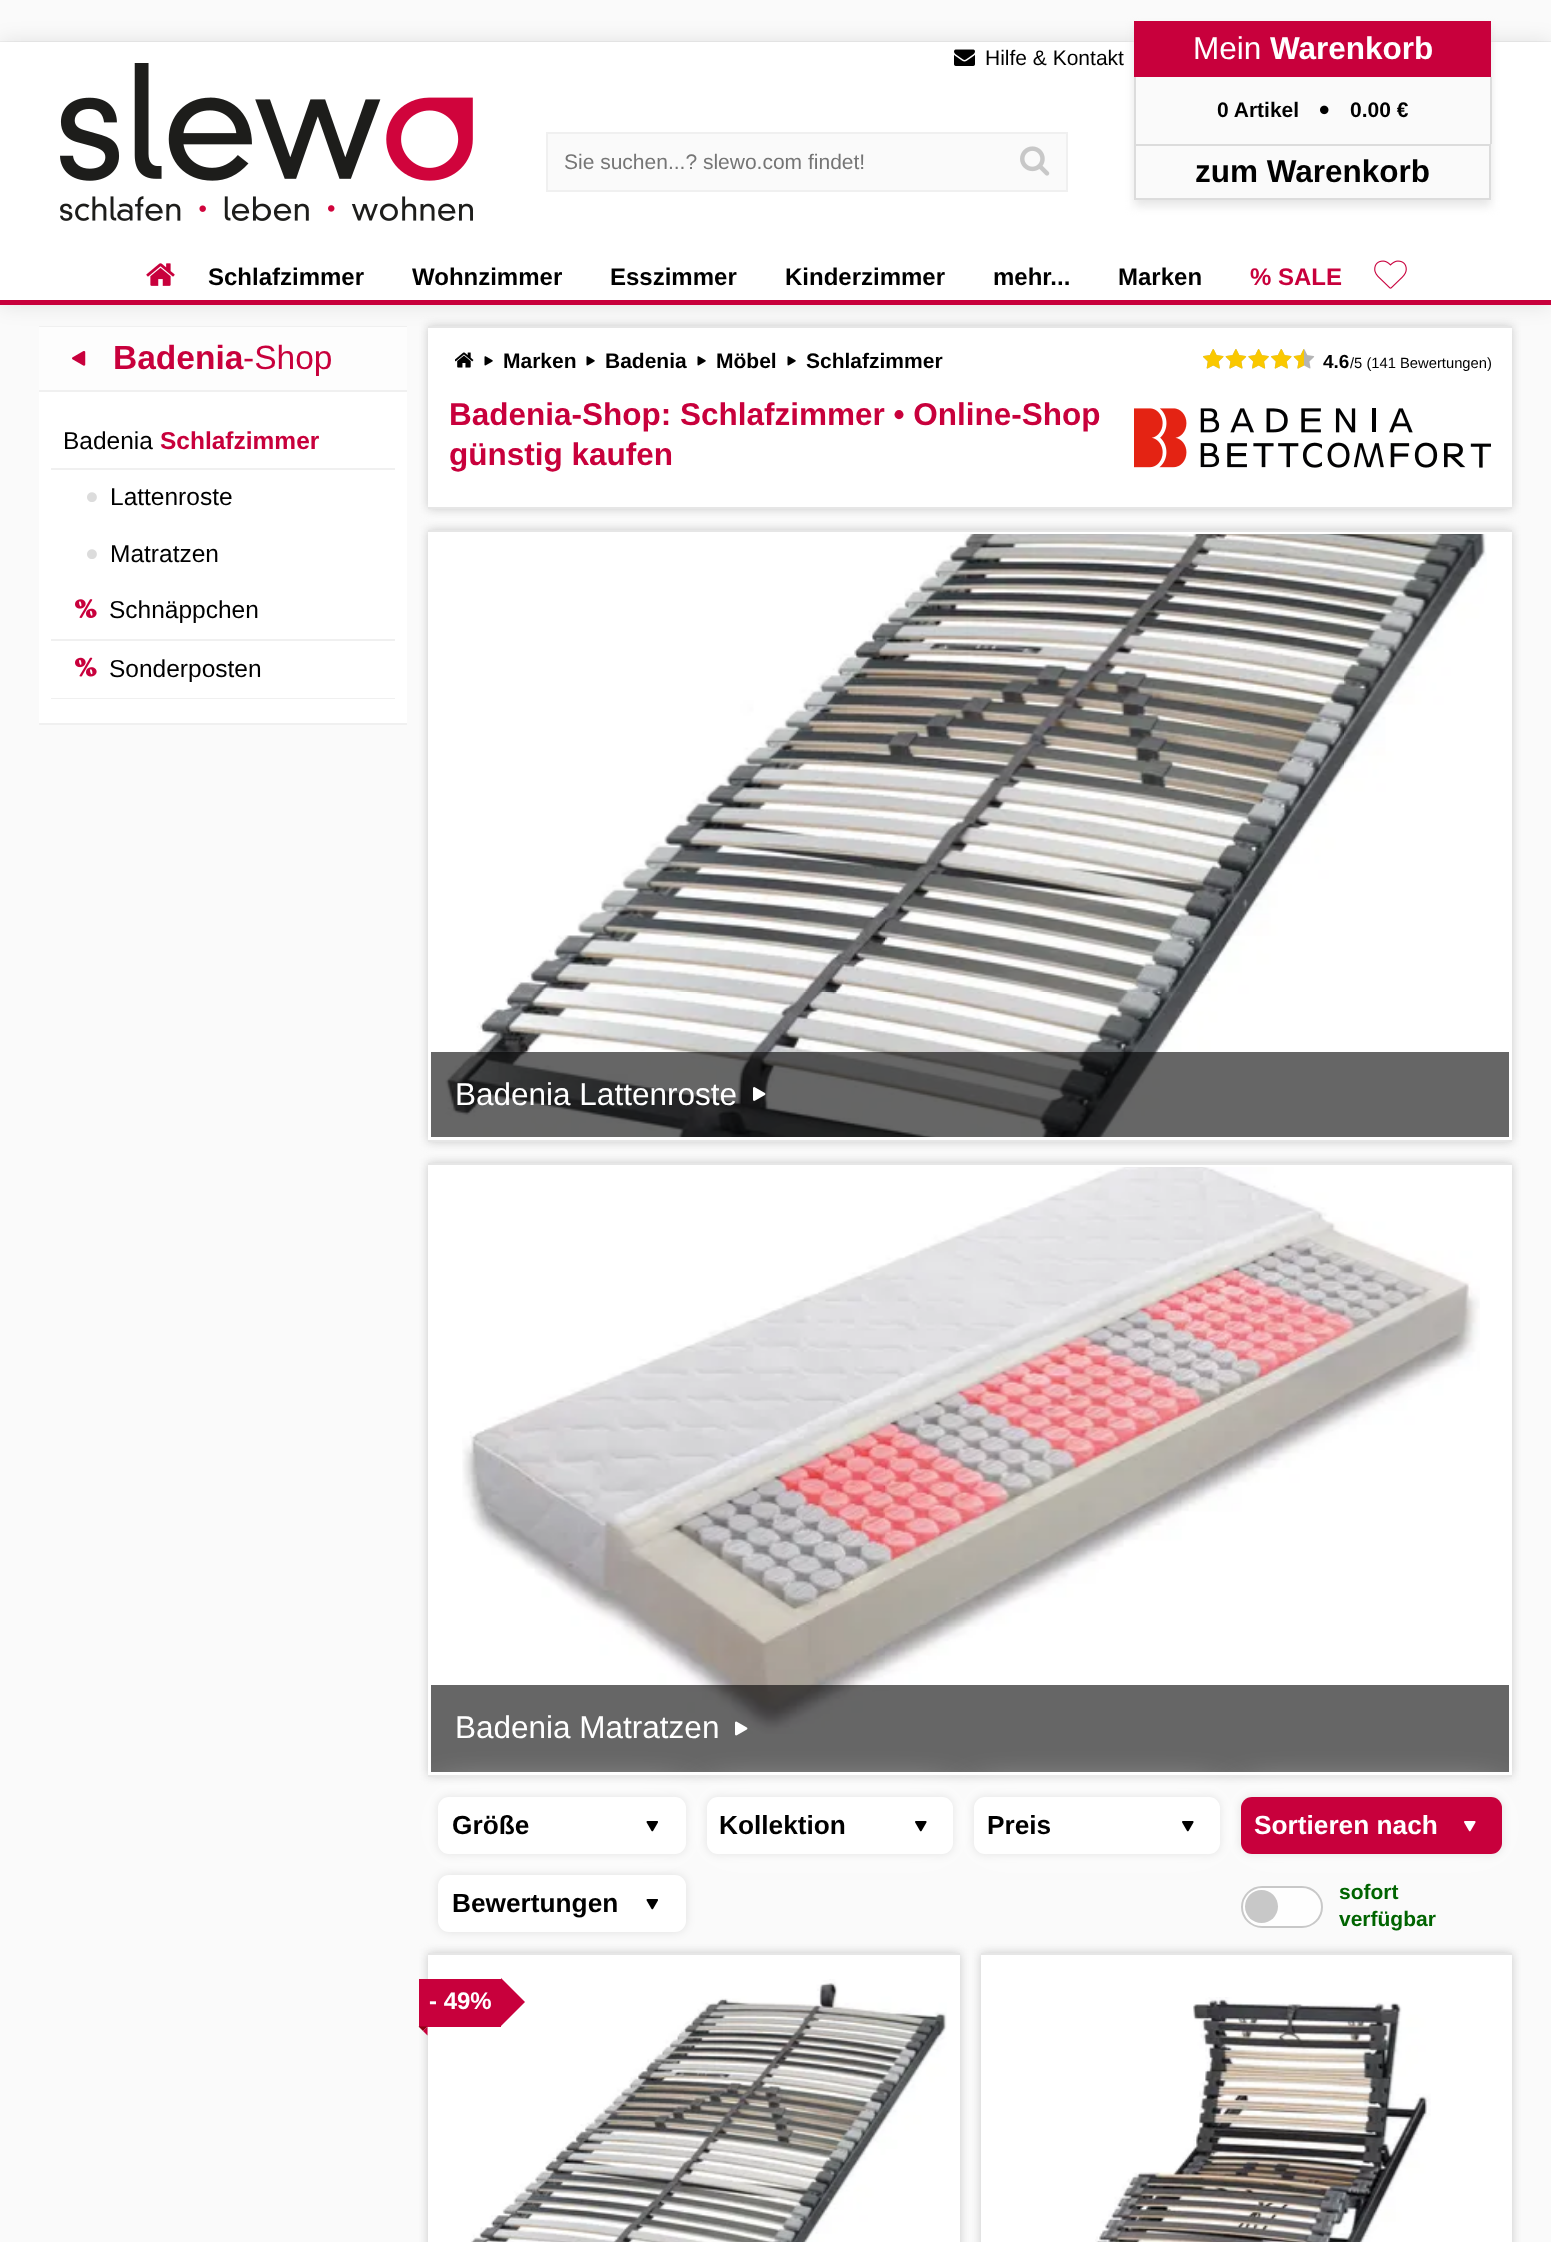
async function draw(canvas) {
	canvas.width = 1551;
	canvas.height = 2242;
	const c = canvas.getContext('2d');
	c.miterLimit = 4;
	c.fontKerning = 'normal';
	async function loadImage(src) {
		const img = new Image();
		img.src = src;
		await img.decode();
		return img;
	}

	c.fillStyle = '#fafafa';
	c.fillRect(0, 0, 1551, 2242);
	c.fillStyle = '#f0f0f0';
	c.fillRect(0, 41, 1551, 1);
	c.fillStyle = '#0000001a';
	c.filter = 'blur(10.5px)';
	c.beginPath();
	c.rect(0, 42, 1551, 263);
	c.fill();
	c.filter = 'none';
	c.fillStyle = '#fff';
	c.fillRect(0, 42, 1551, 258);
	c.fillStyle = '#c8003c';
	c.fillRect(0, 300, 1551, 5);
	c.drawImage(await loadImage('img1.png'), 954, 49, 21, 17);
	c.font = '21px Liberation Sans';
	c.fillStyle = '#000';
	c.fillText('Hilfe & Kontakt', 985, 65);
	c.fillStyle = '#e6e6e6';
	c.filter = 'blur(5px)';
	c.beginPath();
	c.rect(1134, 27, 357, 179);
	c.fill();
	c.filter = 'none';
	c.fillStyle = '#fafafa';
	c.fillRect(1136, 77, 354, 121);
	c.fillStyle = '#c8003c';
	c.fillRect(1134, 21, 357, 56);
	c.font = '31.5px Liberation Sans';
	c.fillStyle = '#fff';
	c.fillText('Mein', 1193, 59);
	c.font = 'bold 31.5px Liberation Sans';
	c.fillText('Warenkorb', 1270, 59);
	c.fillStyle = '#dcdcdc';
	c.fillRect(1490, 77, 2, 67);
	c.fillRect(1134, 77, 2, 67);
	c.font = 'bold 21px Liberation Sans';
	c.fillStyle = '#000';
	c.fillText('0 Artikel', 1217, 117);
	c.drawImage(await loadImage('img2.png'), 1320, 105, 9, 10);
	c.fillText('0.00 €', 1350, 117);
	c.strokeStyle = '#dcdcdc';
	c.lineWidth = 2;
	c.strokeRect(1135, 145, 355, 54);
	c.font = 'bold 31.5px Liberation Sans';
	c.fillText('zum Warenkorb', 1195, 182);
	c.drawImage(await loadImage('img3.png'), 60, 63, 413, 158);
	c.fillStyle = '#fafafa';
	c.beginPath();
	c.rect(547, 133, 520, 58);
	c.fill();
	c.strokeStyle = '#f0f0f0';
	c.stroke();
	c.font = '21px Liberation Sans';
	c.fillStyle = '#757575';
	c.fillText('Sie suchen...? slewo.com findet!', 564, 169);
	c.drawImage(await loadImage('img4.png'), 1020, 146, 30, 30);
	c.drawImage(await loadImage('img5.png'), 146, 263, 29, 23);
	c.font = 'bold 24px Liberation Sans';
	c.fillStyle = '#000';
	for (const [text, x, y] of [
		['Schlafzimmer', 208, 285],
		['Wohnzimmer', 412, 285],
		['Esszimmer', 610, 285],
		['Kinderzimmer', 785, 285],
		['mehr...', 993, 285],
		['Marken', 1118, 285],
	]) {
		c.fillText(text, x, y);
	}
	c.fillStyle = '#c8003c';
	c.fillText('% SALE', 1250, 285);
	c.drawImage(await loadImage('img6.png'), 1374, 260, 33, 29);
	for (const [x, y, w, h, color] of [
		[39, 392, 368, 331, '#fff'],
		[39, 326, 368, 1, '#f0f0f0'],
		[39, 723, 368, 2, '#f0f0f0'],
		[39, 327, 368, 63, '#fdfdfd'],
		[39, 390, 368, 2, '#f0f0f0'],
	]) {
		c.fillStyle = color;
		c.fillRect(x, y, w, h);
	}
	c.drawImage(await loadImage('img7.png'), 72, 351, 14, 15);
	c.font = 'bold 33.5px Liberation Sans';
	c.fillStyle = '#c8003c';
	c.fillText('Badenia', 113, 369);
	c.font = '33.5px Liberation Sans';
	c.fillText('-Shop', 243, 369);
	c.fillStyle = '#f0f0f0';
	c.fillRect(51, 468, 344, 2);
	c.font = '24.5px Liberation Sans';
	c.fillStyle = '#000';
	c.fillText('Badenia', 63, 449);
	c.font = 'bold 24.5px Liberation Sans';
	c.fillStyle = '#c8003c';
	c.fillText('Schlafzimmer', 160, 449);
	c.drawImage(await loadImage('img8.png'), 87, 492, 10, 10);
	c.font = '24.5px Liberation Sans';
	c.fillStyle = '#000';
	c.fillText('Lattenroste', 110, 505);
	c.drawImage(await loadImage('img8.png'), 87, 549, 10, 10);
	c.fillText('Matratzen', 110, 562);
	c.fillStyle = '#f0f0f0';
	c.fillRect(51, 639, 344, 2);
	c.drawImage(await loadImage('img9.png'), 75, 599, 22, 19);
	c.fillStyle = '#000';
	c.fillText('Schnäppchen', 109, 618);
	c.fillStyle = '#f0f0f0';
	c.fillRect(51, 698, 344, 1);
	c.drawImage(await loadImage('img10.png'), 75, 657, 22, 20);
	c.fillStyle = '#000';
	c.fillText('Sonderposten', 109, 677);
	c.fillStyle = '#c8c8c8';
	c.filter = 'blur(5px)';
	c.beginPath();
	c.rect(428, 326, 1084, 183);
	c.fill();
	c.filter = 'none';
	for (const [x, y, w, h, color] of [
		[428, 328, 1084, 179, '#fff'],
		[428, 326, 1084, 2, '#e6e6e6'],
		[428, 507, 1084, 2, '#e6e6e6'],
	]) {
		c.fillStyle = color;
		c.fillRect(x, y, w, h);
	}
	c.drawImage(await loadImage('img11.png'), 455, 352, 19, 16);
	c.drawImage(await loadImage('img12.png'), 484, 356, 9, 10);
	c.font = 'bold 21px Liberation Sans';
	c.fillStyle = '#000';
	c.fillText('Marken', 503, 368);
	c.drawImage(await loadImage('img12.png'), 586, 356, 9, 10);
	c.fillText('Badenia', 605, 368);
	c.drawImage(await loadImage('img12.png'), 697, 356, 9, 10);
	c.fillText('Möbel', 716, 368);
	c.drawImage(await loadImage('img12.png'), 787, 356, 9, 10);
	c.fillText('Schlafzimmer', 806, 368);
	c.drawImage(await loadImage('img13.png'), 1203, 349, 112, 20);
	c.drawImage(await loadImage('img14.png'), 1203, 349, 101, 20);
	c.font = 'bold 19px Liberation Sans';
	c.fillText('4.6', 1323, 368);
	c.font = '14.75px Liberation Sans';
	c.fillText('/5 (141 Bewertungen)', 1350, 368);
	c.font = 'bold 31.5px Liberation Sans';
	c.fillStyle = '#c8003c';
	c.fillText('Badenia-Shop: Schlafzimmer • Online-Shop', 449, 425);
	c.fillText('günstig kaufen', 449, 465);
	c.drawImage(await loadImage('img15.png'), 1134, 408, 357, 60);
	c.fillStyle = '#c8c8c8';
	c.filter = 'blur(5px)';
	c.beginPath();
	c.rect(428, 530, 1084, 612);
	c.fill();
	c.filter = 'none';
	for (const [x, y, w, h, color] of [
		[428, 532, 1084, 608, '#fff'],
		[428, 530, 1084, 2, '#e6e6e6'],
		[428, 1140, 1084, 2, '#e6e6e6'],
	]) {
		c.fillStyle = color;
		c.fillRect(x, y, w, h);
	}
	c.drawImage(await loadImage('img16.png'), 445, 534, 1042, 603);
	c.fillStyle = '#00000099';
	c.fillRect(431, 1052, 1078, 85);
	c.font = '31.5px Liberation Sans';
	c.fillStyle = '#fff';
	c.fillText('Badenia Lattenroste', 455, 1105);
	c.drawImage(await loadImage('img17.png'), 753, 1087, 13, 14);
	c.fillStyle = '#c8c8c8';
	c.filter = 'blur(5px)';
	c.beginPath();
	c.rect(428, 1163, 1084, 613);
	c.fill();
	c.filter = 'none';
	for (const [x, y, w, h, color] of [
		[428, 1165, 1084, 610, '#fff'],
		[428, 1163, 1084, 2, '#e6e6e6'],
		[428, 1775, 1084, 2, '#e6e6e6'],
	]) {
		c.fillStyle = color;
		c.fillRect(x, y, w, h);
	}
	c.drawImage(await loadImage('img18.png'), 462, 1167, 1018, 567);
	c.fillStyle = '#00000099';
	c.fillRect(431, 1685, 1078, 87);
	c.fillStyle = '#fff';
	c.fillText('Badenia Matratzen', 455, 1738);
	c.drawImage(await loadImage('img19.png'), 735, 1721, 13, 15);
	c.filter = 'blur(21px)';
	c.beginPath();
	c.roundRect(438, 1797, 248, 57, 11);
	c.fill();
	c.filter = 'none';
	c.fillStyle = '#0000001a';
	c.filter = 'blur(5px)';
	c.beginPath();
	c.roundRect(438, 1797, 248, 57, 11);
	c.fill();
	c.filter = 'none';
	c.fillStyle = '#fff';
	c.beginPath();
	c.roundRect(438, 1797, 248, 57, 11);
	c.fill();
	c.font = 'bold 26.25px Liberation Sans';
	c.fillStyle = '#000';
	c.fillText('Größe', 452, 1834);
	c.drawImage(await loadImage('img20.png'), 646, 1821, 12, 11);
	c.fillStyle = '#fff';
	c.filter = 'blur(21px)';
	c.beginPath();
	c.roundRect(707, 1797, 246, 57, 11);
	c.fill();
	c.filter = 'none';
	c.fillStyle = '#0000001a';
	c.filter = 'blur(5px)';
	c.beginPath();
	c.roundRect(707, 1797, 246, 57, 11);
	c.fill();
	c.filter = 'none';
	c.fillStyle = '#fff';
	c.beginPath();
	c.roundRect(707, 1797, 246, 57, 11);
	c.fill();
	c.fillStyle = '#000';
	c.fillText('Kollektion', 719, 1834);
	c.drawImage(await loadImage('img21.png'), 915, 1821, 12, 11);
	c.fillStyle = '#fff';
	c.filter = 'blur(21px)';
	c.beginPath();
	c.roundRect(974, 1797, 246, 57, 11);
	c.fill();
	c.filter = 'none';
	c.fillStyle = '#0000001a';
	c.filter = 'blur(5px)';
	c.beginPath();
	c.roundRect(974, 1797, 246, 57, 11);
	c.fill();
	c.filter = 'none';
	c.fillStyle = '#fff';
	c.beginPath();
	c.roundRect(974, 1797, 246, 57, 11);
	c.fill();
	c.fillStyle = '#000';
	c.fillText('Preis', 987, 1834);
	c.drawImage(await loadImage('img21.png'), 1182, 1821, 12, 11);
	c.fillStyle = '#0000001a';
	c.filter = 'blur(5px)';
	c.beginPath();
	c.roundRect(438, 1875, 248, 57, 11);
	c.fill();
	c.filter = 'none';
	c.fillStyle = '#fff';
	c.beginPath();
	c.roundRect(438, 1875, 248, 57, 11);
	c.fill();
	c.fillStyle = '#000';
	c.fillText('Bewertungen', 452, 1912);
	c.drawImage(await loadImage('img20.png'), 646, 1899, 12, 11);
	c.fillStyle = '#fff';
	c.filter = 'blur(21px)';
	c.beginPath();
	c.roundRect(1241, 1797, 261, 57, 11);
	c.fill();
	c.filter = 'none';
	c.fillStyle = '#0000001a';
	c.filter = 'blur(5px)';
	c.beginPath();
	c.roundRect(1241, 1797, 261, 57, 11);
	c.fill();
	c.filter = 'none';
	c.fillStyle = '#c8003c';
	c.beginPath();
	c.roundRect(1241, 1797, 261, 57, 11);
	c.fill();
	c.fillStyle = '#fff';
	c.fillText('Sortieren nach', 1254, 1834);
	c.drawImage(await loadImage('img22.png'), 1464, 1821, 12, 11);
	c.fillStyle = '#fefefe';
	c.beginPath();
	c.roundRect(1242, 1887, 80, 40, 20);
	c.fill();
	c.strokeStyle = '#c8c8c8';
	c.stroke();
	c.fillStyle = '#c8c8c8';
	c.beginPath();
	c.arc(1261.5, 1906.5, 16.5, 0, 2 * Math.PI);
	c.fill();
	c.font = 'bold 21px Liberation Sans';
	c.fillStyle = '#006400';
	c.fillText('sofort', 1339, 1899);
	c.fillText('verfügbar', 1339, 1926);
	c.fillStyle = '#c8c8c8';
	c.filter = 'blur(5px)';
	c.beginPath();
	c.rect(428, 1953, 532, 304);
	c.fill();
	c.filter = 'none';
	c.fillStyle = '#fff';
	c.fillRect(428, 1955, 532, 287);
	c.fillStyle = '#e6e6e6';
	c.fillRect(428, 1953, 532, 2);
	c.drawImage(await loadImage('img23.png'), 470, 1979, 477, 263);
	c.fillStyle = '#c8003c';
	c.fillRect(419, 1979, 82, 48);
	c.font = 'bold 24px Liberation Sans';
	c.fillStyle = '#fff';
	c.fillText('- 49%', 429, 2009);
	c.fillStyle = '#c8003c';
	c.beginPath();
	c.moveTo(501, 2026);
	c.lineTo(501, 1978);
	c.lineTo(525, 2002);
	c.closePath();
	c.fill();
	c.fillStyle = '#8c0014';
	c.beginPath();
	c.moveTo(418.5, 2026.5);
	c.lineTo(427.5, 2026.5);
	c.lineTo(423, 2031);
	c.closePath();
	c.fill();
	c.fillStyle = '#c8003c';
	c.beginPath();
	c.moveTo(427.5, 2026.5);
	c.lineTo(427.5, 2035.5);
	c.lineTo(423, 2031);
	c.closePath();
	c.fill();
	c.fillStyle = '#c8c8c8';
	c.filter = 'blur(5px)';
	c.beginPath();
	c.rect(981, 1953, 531, 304);
	c.fill();
	c.filter = 'none';
	c.fillStyle = '#fff';
	c.fillRect(981, 1955, 531, 287);
	c.fillStyle = '#e6e6e6';
	c.fillRect(981, 1953, 531, 2);
	c.drawImage(await loadImage('img24.png'), 1095, 1997, 336, 245);
}

draw(document.querySelector('canvas'));
